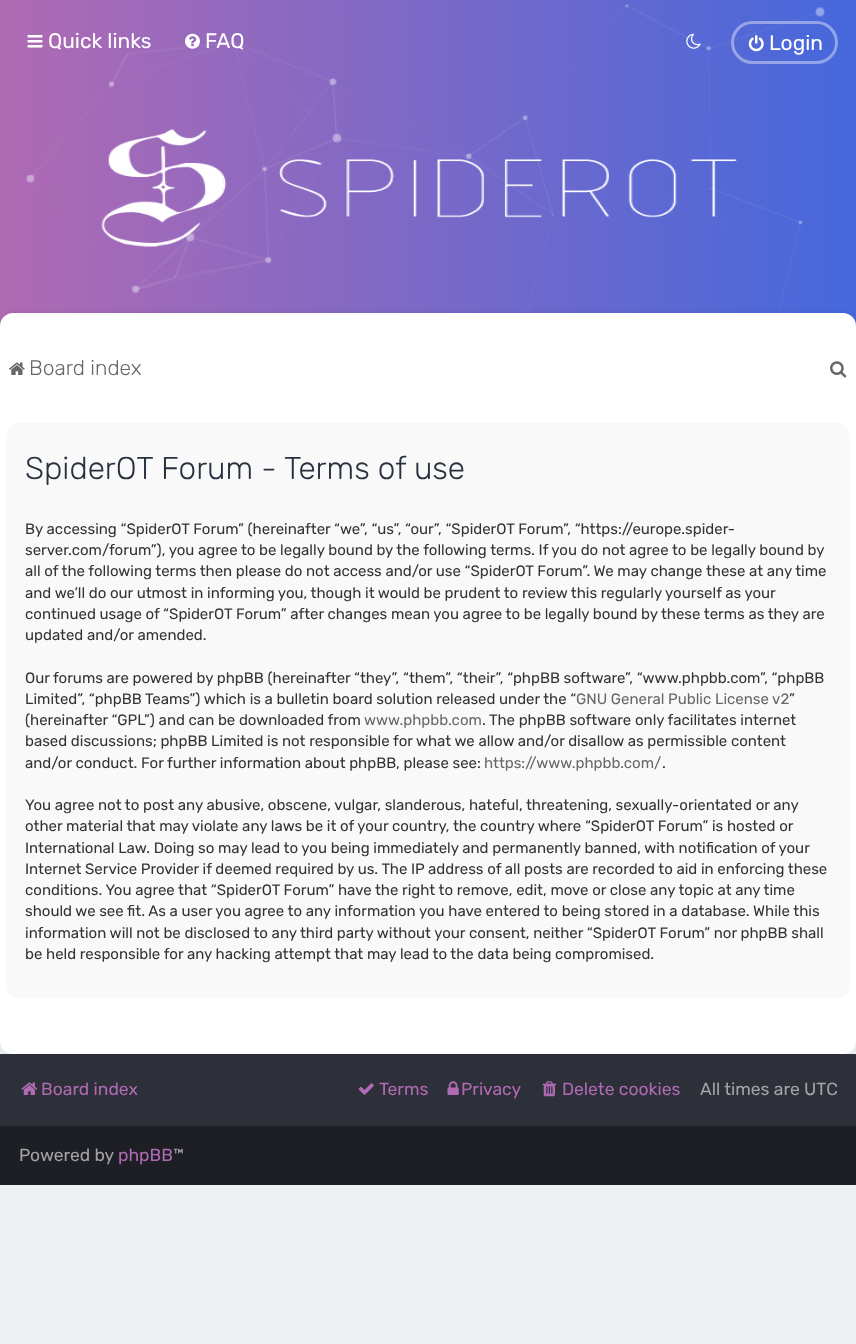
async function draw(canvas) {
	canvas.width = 856;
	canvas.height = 1344;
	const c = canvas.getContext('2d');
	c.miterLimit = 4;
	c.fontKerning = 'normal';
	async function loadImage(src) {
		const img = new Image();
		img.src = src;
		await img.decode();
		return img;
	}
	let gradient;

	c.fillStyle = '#ecf0f1';
	c.fillRect(0, 0, 856, 1344);
	gradient = c.createLinearGradient(0, 188, 856, 187);
	gradient.addColorStop(0, '#b06ab3');
	gradient.addColorStop(1, '#4568dc');
	c.fillStyle = gradient;
	c.fillRect(0, 0, 856, 326);
	c.drawImage(await loadImage('img1.png'), 26, 3, 799, 310);
	c.drawImage(await loadImage('img2.png'), 101, 129, 636, 118);
	c.drawImage(await loadImage('img3.png'), 27, 35, 16, 13);
	c.font = '21px Rubik';
	c.fillStyle = '#fff';
	c.fillText('Quick links', 48, 48);
	c.drawImage(await loadImage('img4.png'), 185, 33, 15, 16);
	c.fillText('FAQ', 205, 48);
	c.drawImage(await loadImage('img5.png'), 686, 33, 15, 16);
	c.beginPath();
	c.roundRect(732.5, 22.5, 104, 40, 20);
	c.strokeStyle = '#ffffff66';
	c.lineWidth = 3;
	c.stroke();
	c.drawImage(await loadImage('img6.png'), 748, 35, 16, 17);
	c.fillText('Login', 769, 50);
	c.fillStyle = '#2d3039';
	c.fillRect(0, 1054, 856, 72);
	c.fillStyle = '#0000000d';
	c.filter = 'blur(3px)';
	c.beginPath();
	c.roundRect(0, 313, 856, 741, 13);
	c.fill();
	c.filter = 'none';
	c.fillStyle = '#fff';
	c.beginPath();
	c.roundRect(0, 313, 856, 741, 13);
	c.fill();
	c.drawImage(await loadImage('img7.png'), 9, 362, 16, 13);
	c.font = '300 21px Rubik';
	c.fillStyle = '#676767';
	c.fillText('Board index', 29, 375);
	c.drawImage(await loadImage('img8.png'), 830, 361, 17, 17);
	c.fillStyle = '#f9f9f9';
	c.beginPath();
	c.roundRect(6, 423, 844, 575, 13);
	c.fill();
	c.font = '300 31.5px Rubik';
	c.fillStyle = '#28313f';
	c.fillText('SpiderOT Forum - Terms of use', 25, 479);
	c.font = '15px Rubik';
	c.fillStyle = '#333';
	for (const [text, x, y] of [
		['By accessing “SpiderOT Forum” (hereinafter “we”, “us”, “our”, “SpiderOT Forum”, “https://europe.spider-', 25, 534],
		['server.com/forum”), you agree to be legally bound by the following terms. If you do not agree to be legally bound by', 25, 555],
		['all of the following terms then please do not access and/or use “SpiderOT Forum”. We may change these at any time', 25, 576],
		['and we’ll do our utmost in informing you, though it would be prudent to review this regularly yourself as your', 25, 598],
		['continued usage of “SpiderOT Forum” after changes mean you agree to be legally bound by these terms as they are', 25, 619],
		['updated and/or amended.', 25, 640],
		['Our forums are powered by phpBB (hereinafter “they”, “them”, “their”, “phpBB software”, “www.phpbb.com”, “phpBB', 25, 683],
		['Limited”, “phpBB Teams”) which is a bulletin board solution released under the “', 25, 704],
	]) {
		c.fillText(text, x, y);
	}
	c.fillStyle = '#676767';
	c.fillText('GNU General Public License v2', 576, 704);
	c.fillStyle = '#333';
	c.fillText('”', 789, 704);
	c.fillText('(hereinafter “GPL”) and can be downloaded from', 25, 725);
	c.fillStyle = '#676767';
	c.fillText('www.phpbb.com', 364, 725);
	c.fillStyle = '#333';
	for (const [text, x, y] of [
		['. The phpBB software only facilitates internet', 482, 725],
		['based discussions; phpBB Limited is not responsible for what we allow and/or disallow as permissible content', 25, 746],
		['and/or conduct. For further information about phpBB, please see:', 25, 768],
	]) {
		c.fillText(text, x, y);
	}
	c.fillStyle = '#676767';
	c.fillText('https://www.phpbb.com/', 484, 768);
	c.fillStyle = '#333';
	for (const [text, x, y] of [
		['.', 662, 768],
		['You agree not to post any abusive, obscene, vulgar, slanderous, hateful, threatening, sexually-orientated or any', 25, 810],
		['other material that may violate any laws be it of your country, the country where “SpiderOT Forum” is hosted or', 25, 831],
		['International Law. Doing so may lead to you being immediately and permanently banned, with notification of your', 25, 853],
		['Internet Service Provider if deemed required by us. The IP address of all posts are recorded to aid in enforcing these', 25, 874],
		['conditions. You agree that “SpiderOT Forum” have the right to remove, edit, move or close any topic at any time', 25, 895],
		['should we see fit. As a user you agree to any information you have entered to being stored in a database. While this', 25, 916],
		['information will not be disclosed to any third party without your consent, neither “SpiderOT Forum” nor phpBB shall', 25, 938],
		['be held responsible for any hacking attempt that may lead to the data being compromised.', 25, 959],
	]) {
		c.fillText(text, x, y);
	}
	c.drawImage(await loadImage('img9.png'), 21, 1082, 17, 13);
	c.font = '17.5px Rubik';
	c.fillStyle = '#b06ab3';
	c.fillText('Board index', 41, 1095);
	c.drawImage(await loadImage('img10.png'), 358, 1083, 16, 12);
	c.fillText('Terms', 379, 1095);
	c.drawImage(await loadImage('img11.png'), 447, 1081, 12, 14);
	c.fillText('Privacy', 461, 1095);
	c.drawImage(await loadImage('img12.png'), 542, 1081, 15, 16);
	c.fillText('Delete cookies', 562, 1095);
	c.fillStyle = '#a4a4a7';
	c.fillText('All times are UTC', 700, 1095);
	c.fillStyle = '#1d1f25';
	c.fillRect(0, 1126, 856, 59);
	c.fillStyle = '#a4a4a7';
	c.fillText('Powered by', 19, 1161);
	c.fillStyle = '#b06ab3';
	c.fillText('phpBB', 118, 1161);
	c.fillStyle = '#a4a4a7';
	c.fillText('™', 173, 1161);
}

draw(document.querySelector('canvas'));
